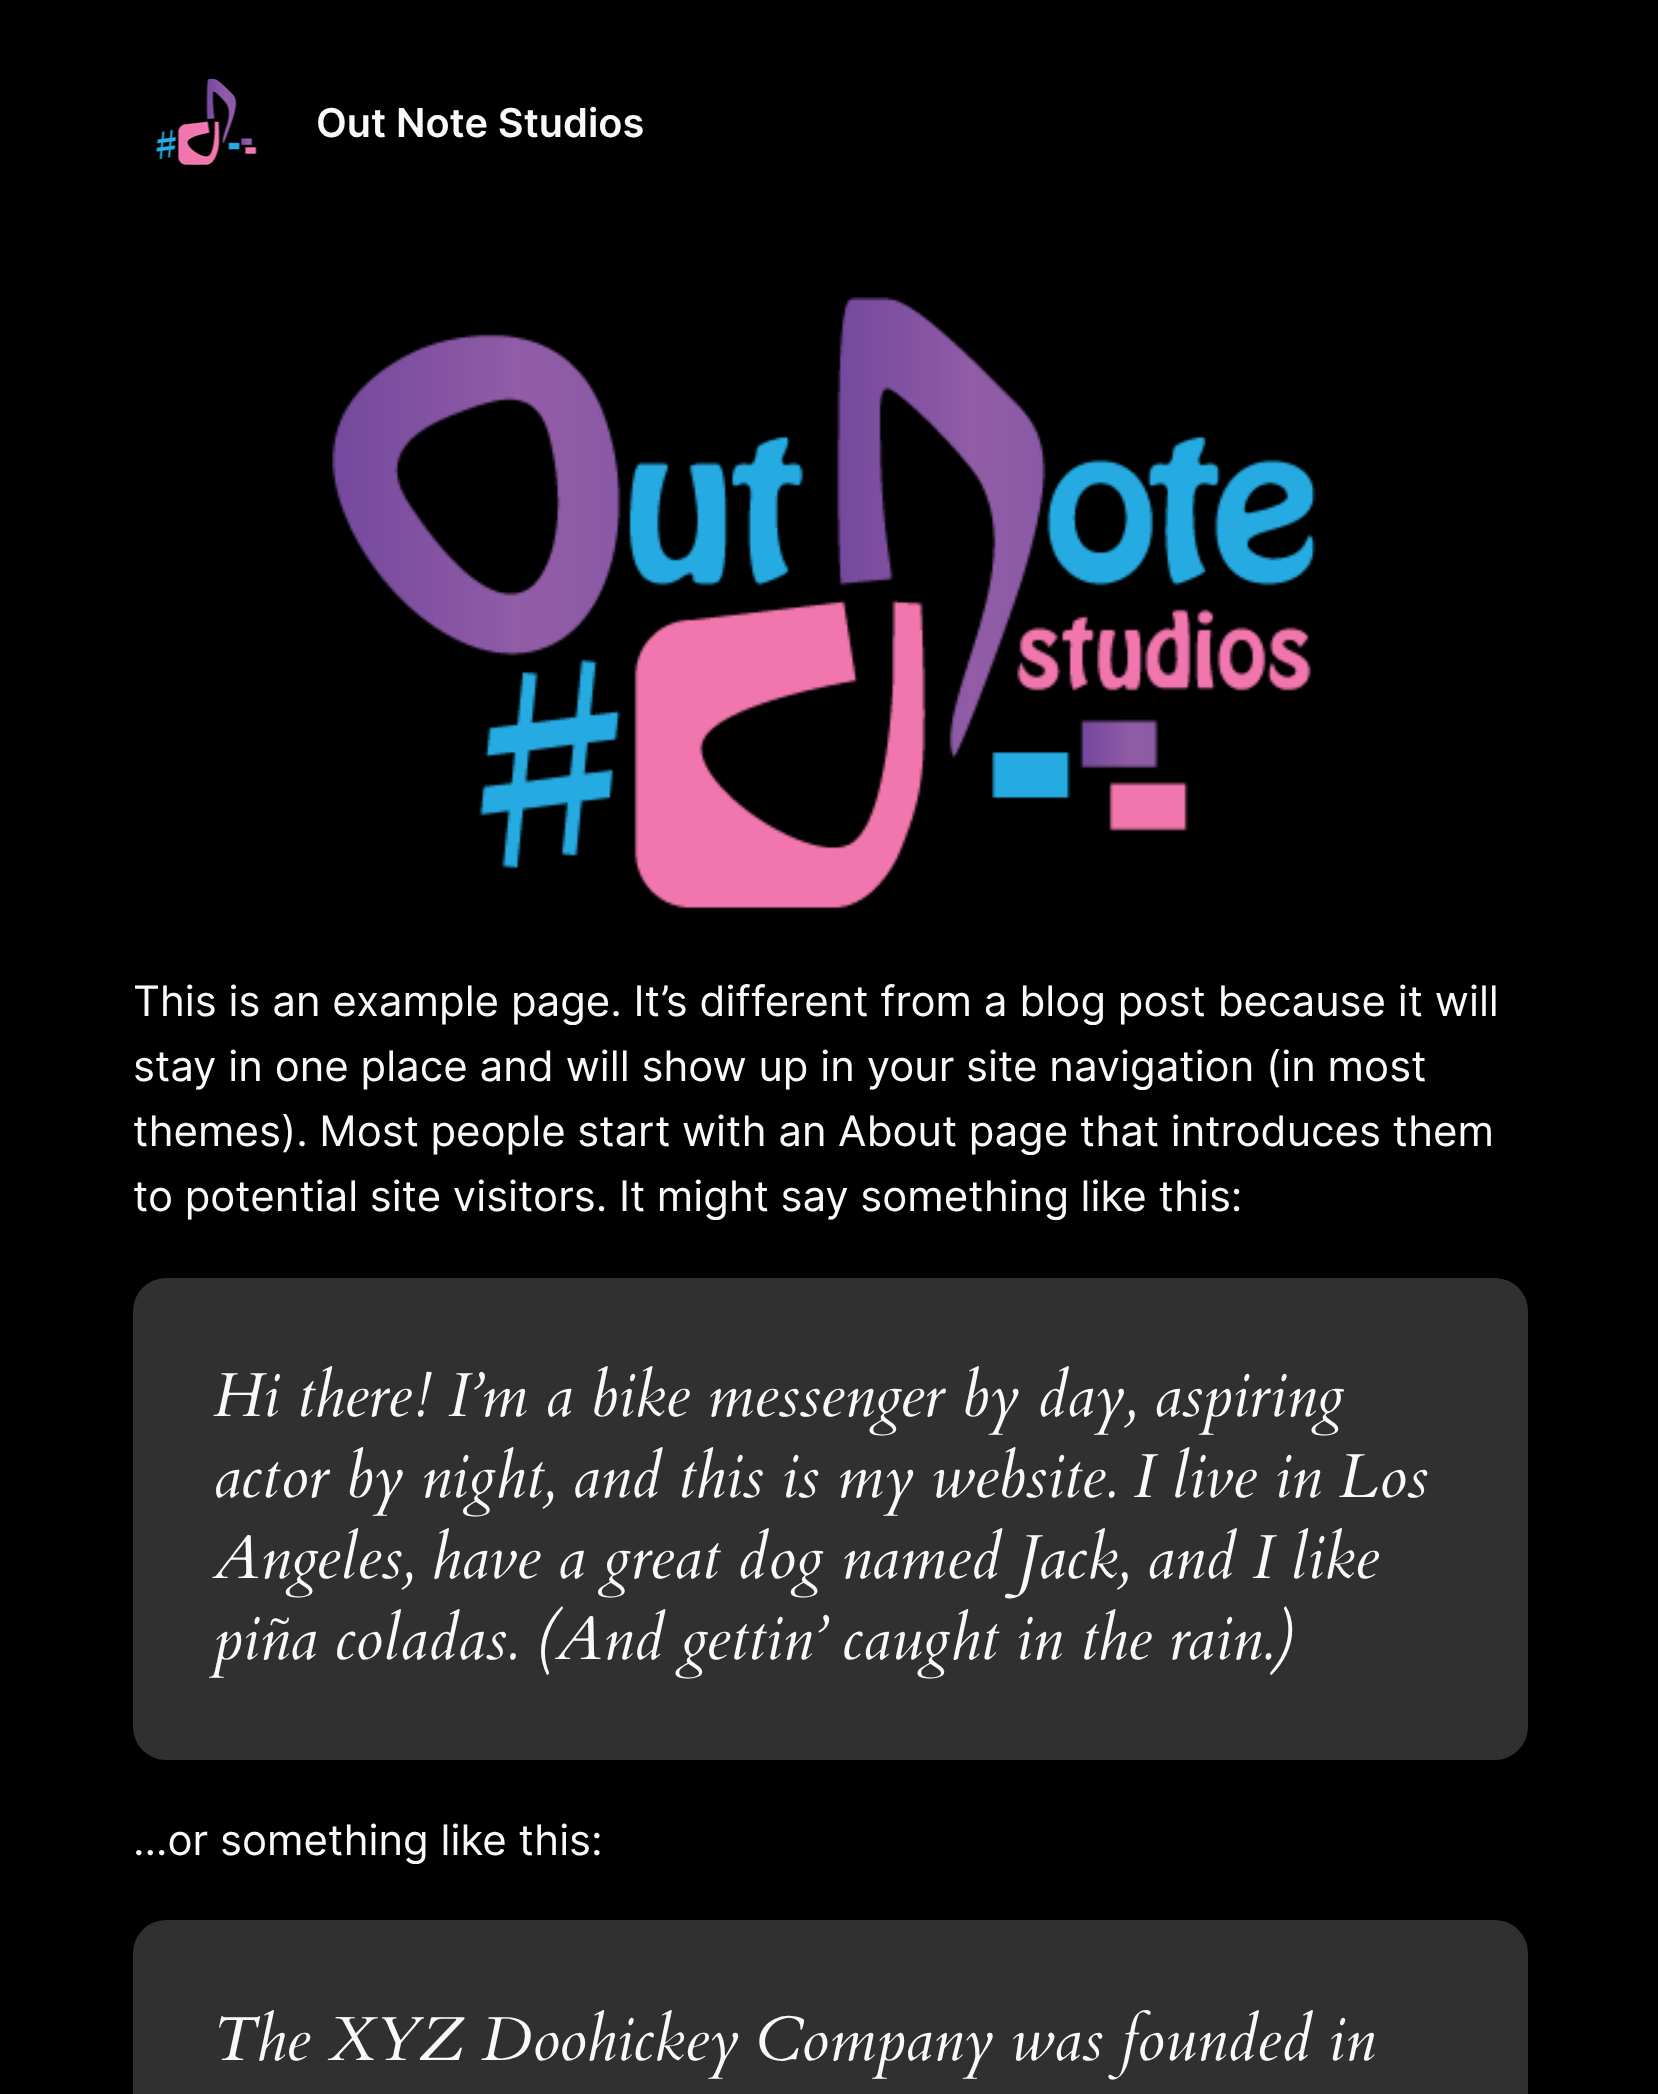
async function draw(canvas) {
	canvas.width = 1658;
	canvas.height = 2094;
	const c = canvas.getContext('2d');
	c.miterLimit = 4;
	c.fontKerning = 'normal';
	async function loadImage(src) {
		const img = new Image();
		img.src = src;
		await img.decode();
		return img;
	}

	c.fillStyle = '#000';
	c.fillRect(0, 0, 1658, 2094);
	c.drawImage(await loadImage('img1.png'), 156, 78, 101, 87);
	c.font = '600 39.75px Inter';
	c.fillStyle = '#f9f9f9';
	c.fillText('Out Note Studios', 316, 137);
	c.drawImage(await loadImage('img2.png'), 332, 297, 984, 612);
	c.font = '42px Inter';
	c.fillText('This is an example page. It’s different from a blog post because it will', 133, 1016);
	c.fillText('stay in one place and will show up in your site navigation (in most', 133, 1081);
	c.wordSpacing = '-0.25px';
	c.fillText('themes). Most people start with an About page that introduces them', 133, 1146);
	c.fillText('to potential site visitors. It might say something like this:', 133, 1211);
	c.fillStyle = '#303030';
	c.beginPath();
	c.roundRect(133, 1278, 1395, 482, 33);
	c.fill();
	c.wordSpacing = '0px';
	c.font = 'italic 62.25px Cardo';
	c.fillStyle = '#f9f9f9';
	for (const [text, x, y] of [
		['Hi there! I’m a bike messenger by day, aspiring', 213, 1416],
		['actor by night, and this is my website. I live in Los', 213, 1497],
		['Angeles, have a great dog named Jack, and I like', 213, 1578],
		['piña coladas. (And gettin’ caught in the rain.)', 213, 1659],
	]) {
		c.fillText(text, x, y);
	}
	c.font = '42px Inter';
	c.fillText('…or something like this:', 133, 1855);
	c.fillStyle = '#303030';
	c.beginPath();
	c.roundRect(133, 1920, 1395, 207, 33);
	c.fill();
	c.wordSpacing = '-0.25px';
	c.font = 'italic 62.25px Cardo';
	c.fillStyle = '#f9f9f9';
	c.fillText('The XYZ Doohickey Company was founded in', 213, 2060);
}

draw(document.querySelector('canvas'));
